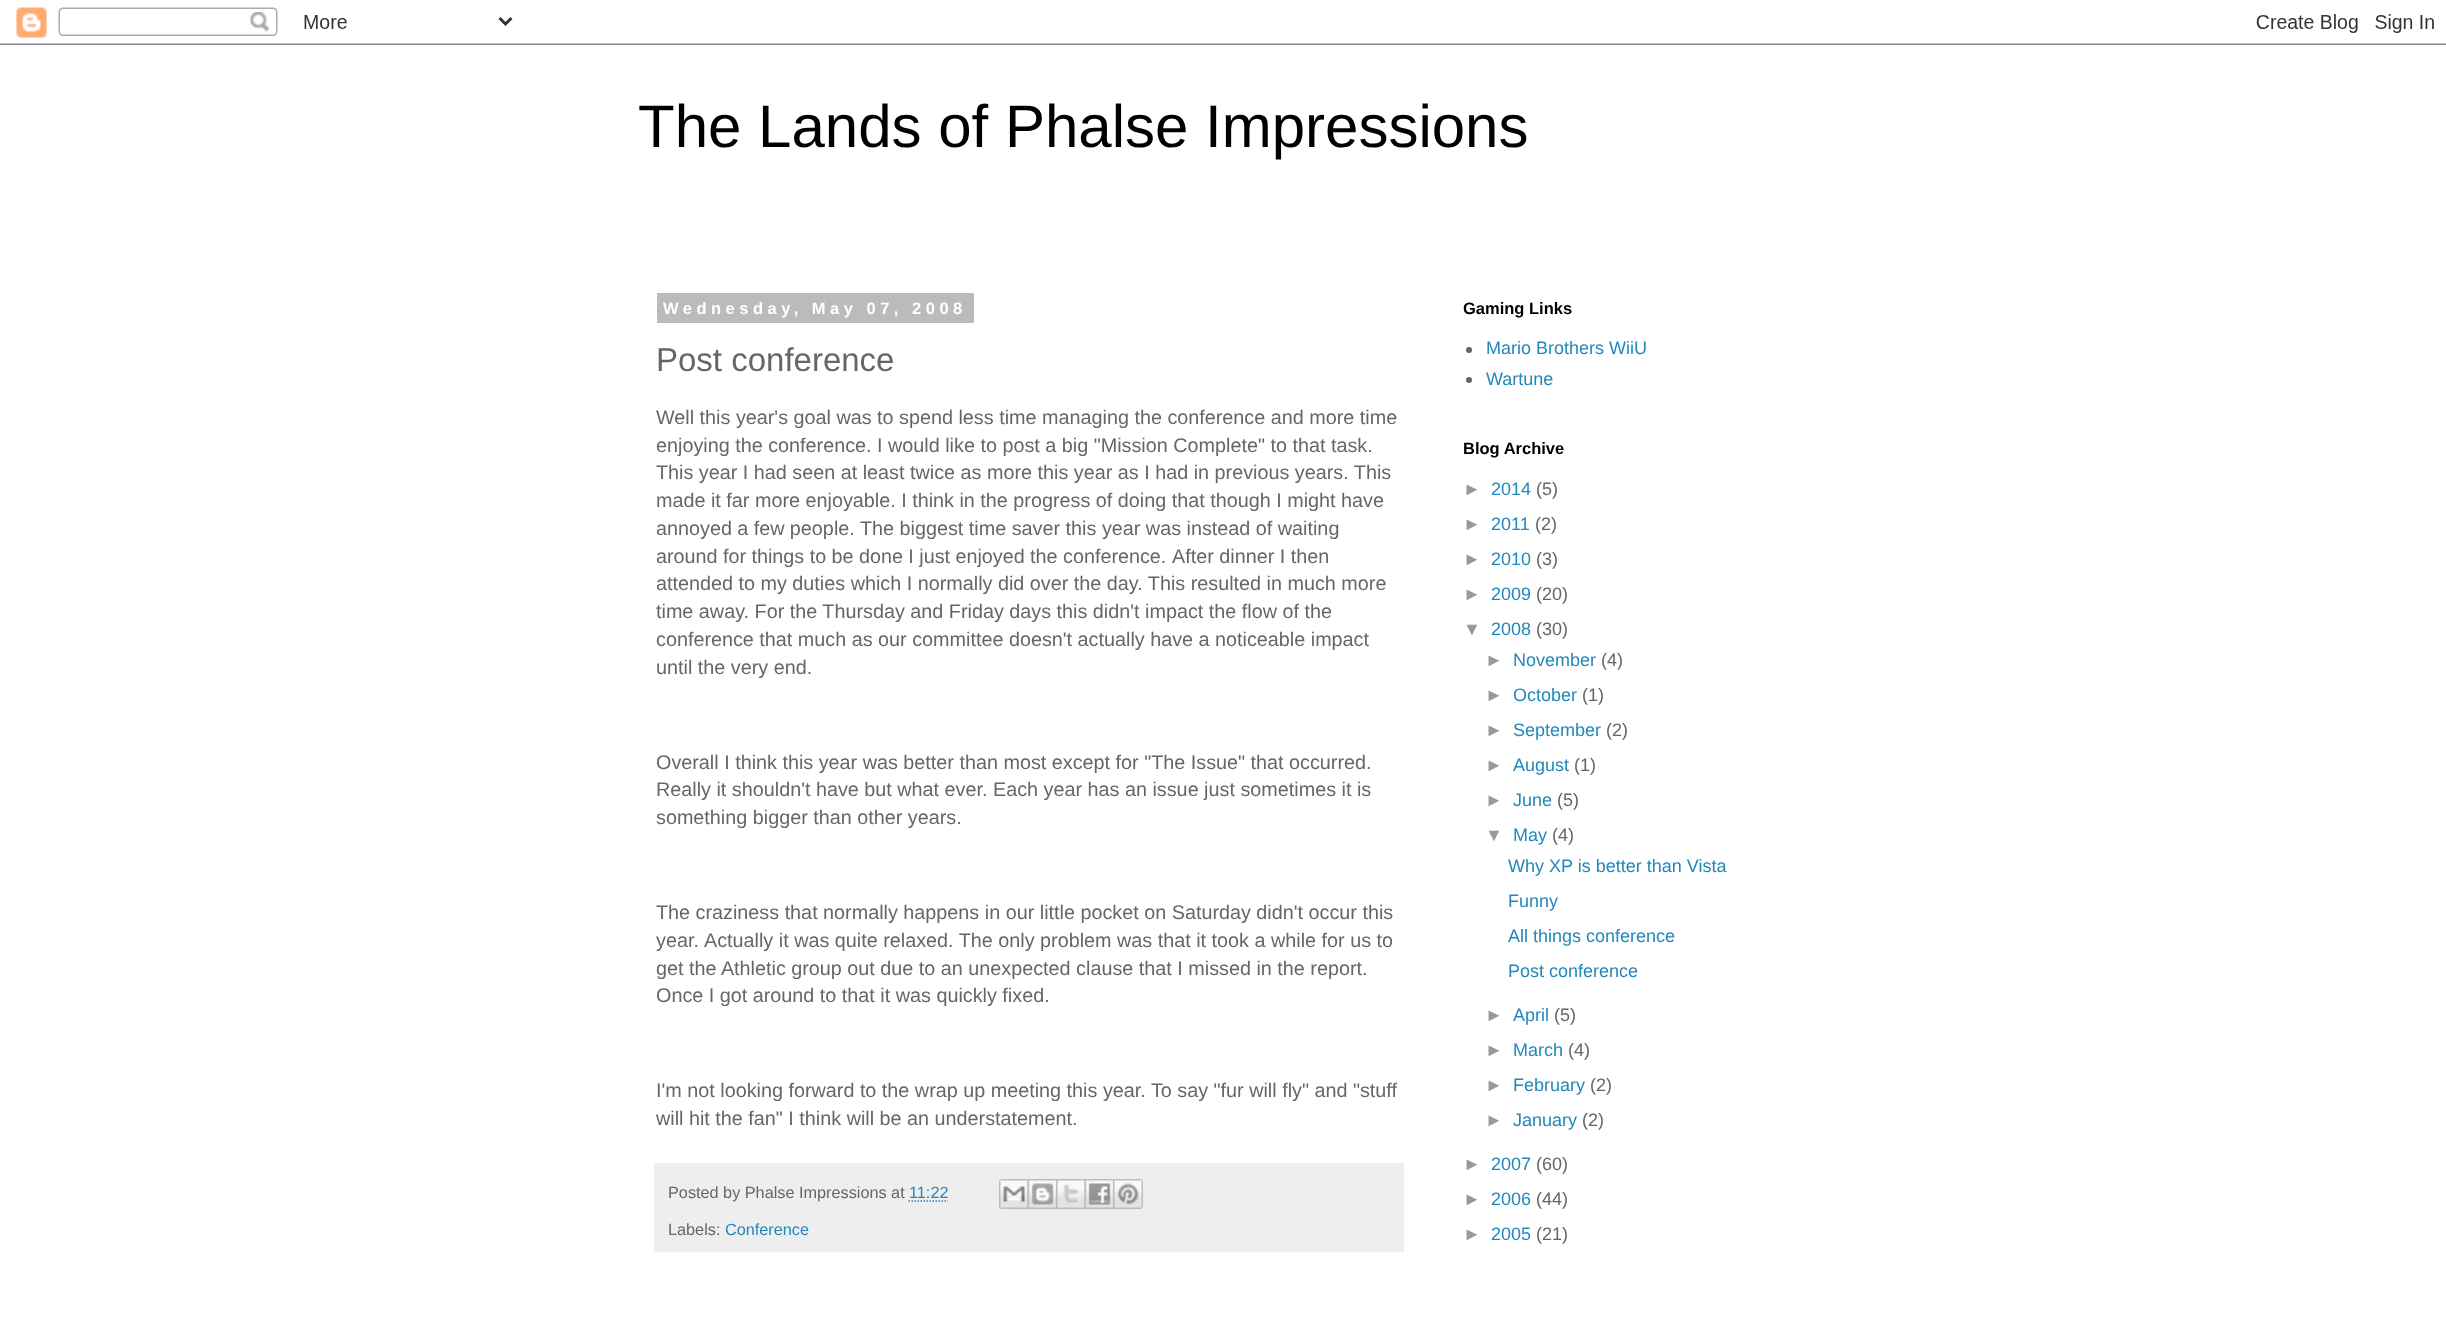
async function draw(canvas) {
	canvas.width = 2446;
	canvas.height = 1320;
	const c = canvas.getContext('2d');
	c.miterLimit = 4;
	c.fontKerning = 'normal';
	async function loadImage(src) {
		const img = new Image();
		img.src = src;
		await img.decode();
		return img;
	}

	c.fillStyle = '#fff';
	c.fillRect(0, 0, 2446, 1320);
	c.drawImage(await loadImage('img1.png'), 0, 7, 2446, 38);
	c.font = '60px Liberation Sans';
	c.fillStyle = '#000';
	c.fillText('The Lands of Phalse Impressions', 638, 147);
	c.fillStyle = '#bbb';
	c.fillRect(657, 293, 317, 30);
	c.letterSpacing = '4.5px';
	c.font = 'bold 16.5px Liberation Sans';
	c.fillStyle = '#fff';
	c.fillText('Wednesday, May 07, 2008', 663, 314);
	c.letterSpacing = '0px';
	c.font = '33px Liberation Sans';
	c.fillStyle = '#666';
	c.fillText('Post conference', 656, 371);
	c.font = '19.8px Liberation Sans';
	for (const [text, x, y] of [
		['Well this year\'s goal was to spend less time managing the conference and more time', 656, 424],
		['enjoying the conference. I would like to post a big "Mission Complete" to that task.', 656, 452],
		['This year I had seen at least twice as more this year as I had in previous years. This', 656, 479],
		['made it far more enjoyable. I think in the progress of doing that though I might have', 656, 507],
	]) {
		c.fillText(text, x, y);
	}
	c.wordSpacing = '-0.1px';
	c.fillText('annoyed a few people.', 656, 535);
	c.wordSpacing = '0px';
	c.fillText('The biggest time saver this year was instead of waiting', 860, 535);
	c.wordSpacing = '-0.1px';
	c.fillText('around for things to be done I just enjoyed the conference.', 656, 563);
	c.wordSpacing = '0px';
	for (const [text, x, y] of [
		['After dinner I then', 1172, 563],
		['attended to my duties which I normally did over the day. This resulted in much more', 656, 590],
		['time away. For the Thursday and Friday days this didn\'t impact the flow of the', 656, 618],
		['conference that much as our committee doesn\'t actually have a noticeable impact', 656, 646],
		['until the very end.', 656, 674],
		['Overall I think this year was better than most except for "The Issue" that occurred.', 656, 769],
		['Really it shouldn\'t have but what ever.', 656, 796],
		['Each year has an issue just sometimes it is', 993, 796],
		['something bigger than other years.', 656, 824],
		['The craziness that normally happens in our little pocket on Saturday didn\'t occur this', 656, 919],
		['year.', 656, 947],
		['Actually it was quite relaxed. The only problem was that it took a while for us to', 704, 947],
		['get the Athletic group out due to an unexpected clause that I missed in the report.', 656, 975],
		['Once I got around to that it was quickly fixed.', 656, 1002],
		['I\'m not looking forward to the wrap up meeting this year. To say "fur will fly" and "stuff', 656, 1097],
		['will hit the fan" I think will be an understatement.', 656, 1125],
	]) {
		c.fillText(text, x, y);
	}
	c.fillStyle = '#eee';
	c.fillRect(654, 1163, 750, 89);
	c.font = '16.25px Liberation Sans';
	c.fillStyle = '#666';
	c.fillText('Posted by Phalse Impressions at', 668, 1198);
	c.fillStyle = '#28b';
	c.fillText('11:22', 909, 1198);
	c.beginPath();
	c.moveTo(908.5, 1201);
	c.lineTo(948, 1201);
	c.strokeStyle = '#28b';
	c.lineWidth = 1.5;
	c.setLineDash([1.5, 1.5]);
	c.stroke();
	c.drawImage(await loadImage('img2.png'), 999, 1179, 29, 30);
	c.drawImage(await loadImage('img3.png'), 1027, 1179, 29, 30);
	c.drawImage(await loadImage('img4.png'), 1056, 1179, 29, 30);
	c.drawImage(await loadImage('img5.png'), 1084, 1179, 29, 30);
	c.drawImage(await loadImage('img6.png'), 1113, 1179, 30, 30);
	c.fillStyle = '#666';
	c.fillText('Labels:', 668, 1235);
	c.fillStyle = '#28b';
	c.fillText('Conference', 725, 1235);
	c.font = 'bold 16.5px Liberation Sans';
	c.fillStyle = '#000';
	c.fillText('Gaming Links', 1463, 314);
	c.fillStyle = '#666';
	c.beginPath();
	c.arc(1469, 350, 3, 0, 2 * Math.PI);
	c.fill();
	c.font = '18px Liberation Sans';
	c.fillStyle = '#28b';
	c.fillText('Mario Brothers WiiU', 1486, 354);
	c.fillStyle = '#666';
	c.beginPath();
	c.arc(1469, 380, 3, 0, 2 * Math.PI);
	c.fill();
	c.fillStyle = '#28b';
	c.fillText('Wartune', 1486, 385);
	c.font = 'bold 16.5px Liberation Sans';
	c.fillStyle = '#000';
	c.fillText('Blog Archive', 1463, 454);
	c.font = '18px Liberation Sans';
	c.fillStyle = '#999';
	c.fillText('►', 1463, 495);
	c.fillStyle = '#28b';
	c.fillText('2014', 1491, 495);
	c.fillStyle = '#666';
	c.fillText('(5)', 1536, 495);
	c.fillStyle = '#999';
	c.fillText('►', 1463, 530);
	c.fillStyle = '#28b';
	c.fillText('2011', 1491, 530);
	c.fillStyle = '#666';
	c.fillText('(2)', 1535, 530);
	c.fillStyle = '#999';
	c.fillText('►', 1463, 565);
	c.fillStyle = '#28b';
	c.fillText('2010', 1491, 565);
	c.fillStyle = '#666';
	c.fillText('(3)', 1536, 565);
	c.fillStyle = '#999';
	c.fillText('►', 1463, 600);
	c.fillStyle = '#28b';
	c.fillText('2009', 1491, 600);
	c.fillStyle = '#666';
	c.fillText('(20)', 1536, 600);
	c.fillStyle = '#999';
	c.fillText('▼', 1463, 635);
	c.fillStyle = '#28b';
	c.fillText('2008', 1491, 635);
	c.fillStyle = '#666';
	c.fillText('(30)', 1536, 635);
	c.fillStyle = '#999';
	c.fillText('►', 1485, 666);
	c.fillStyle = '#28b';
	c.fillText('November', 1513, 666);
	c.fillStyle = '#666';
	c.fillText('(4)', 1601, 666);
	c.fillStyle = '#999';
	c.fillText('►', 1485, 701);
	c.fillStyle = '#28b';
	c.fillText('October', 1513, 701);
	c.fillStyle = '#666';
	c.fillText('(1)', 1582, 701);
	c.fillStyle = '#999';
	c.fillText('►', 1485, 736);
	c.fillStyle = '#28b';
	c.fillText('September', 1513, 736);
	c.fillStyle = '#666';
	c.fillText('(2)', 1606, 736);
	c.fillStyle = '#999';
	c.fillText('►', 1485, 771);
	c.fillStyle = '#28b';
	c.fillText('August', 1513, 771);
	c.fillStyle = '#666';
	c.fillText('(1)', 1574, 771);
	c.fillStyle = '#999';
	c.fillText('►', 1485, 806);
	c.fillStyle = '#28b';
	c.fillText('June', 1513, 806);
	c.fillStyle = '#666';
	c.fillText('(5)', 1557, 806);
	c.fillStyle = '#999';
	c.fillText('▼', 1485, 841);
	c.fillStyle = '#28b';
	c.fillText('May', 1513, 841);
	c.fillStyle = '#666';
	c.fillText('(4)', 1552, 841);
	c.fillStyle = '#28b';
	for (const [text, x, y] of [
		['Why XP is better than Vista', 1508, 872],
		['Funny', 1508, 907],
		['All things conference', 1508, 942],
		['Post conference', 1508, 977],
	]) {
		c.fillText(text, x, y);
	}
	c.fillStyle = '#999';
	c.fillText('►', 1485, 1021);
	c.fillStyle = '#28b';
	c.fillText('April', 1513, 1021);
	c.fillStyle = '#666';
	c.fillText('(5)', 1554, 1021);
	c.fillStyle = '#999';
	c.fillText('►', 1485, 1056);
	c.fillStyle = '#28b';
	c.fillText('March', 1513, 1056);
	c.fillStyle = '#666';
	c.fillText('(4)', 1568, 1056);
	c.fillStyle = '#999';
	c.fillText('►', 1485, 1091);
	c.fillStyle = '#28b';
	c.fillText('February', 1513, 1091);
	c.fillStyle = '#666';
	c.fillText('(2)', 1590, 1091);
	c.fillStyle = '#999';
	c.fillText('►', 1485, 1126);
	c.fillStyle = '#28b';
	c.fillText('January', 1513, 1126);
	c.fillStyle = '#666';
	c.fillText('(2)', 1582, 1126);
	c.fillStyle = '#999';
	c.fillText('►', 1463, 1170);
	c.fillStyle = '#28b';
	c.fillText('2007', 1491, 1170);
	c.fillStyle = '#666';
	c.fillText('(60)', 1536, 1170);
	c.fillStyle = '#999';
	c.fillText('►', 1463, 1205);
	c.fillStyle = '#28b';
	c.fillText('2006', 1491, 1205);
	c.fillStyle = '#666';
	c.fillText('(44)', 1536, 1205);
	c.fillStyle = '#999';
	c.fillText('►', 1463, 1240);
	c.fillStyle = '#28b';
	c.fillText('2005', 1491, 1240);
	c.fillStyle = '#666';
	c.fillText('(21)', 1536, 1240);
}

draw(document.querySelector('canvas'));
